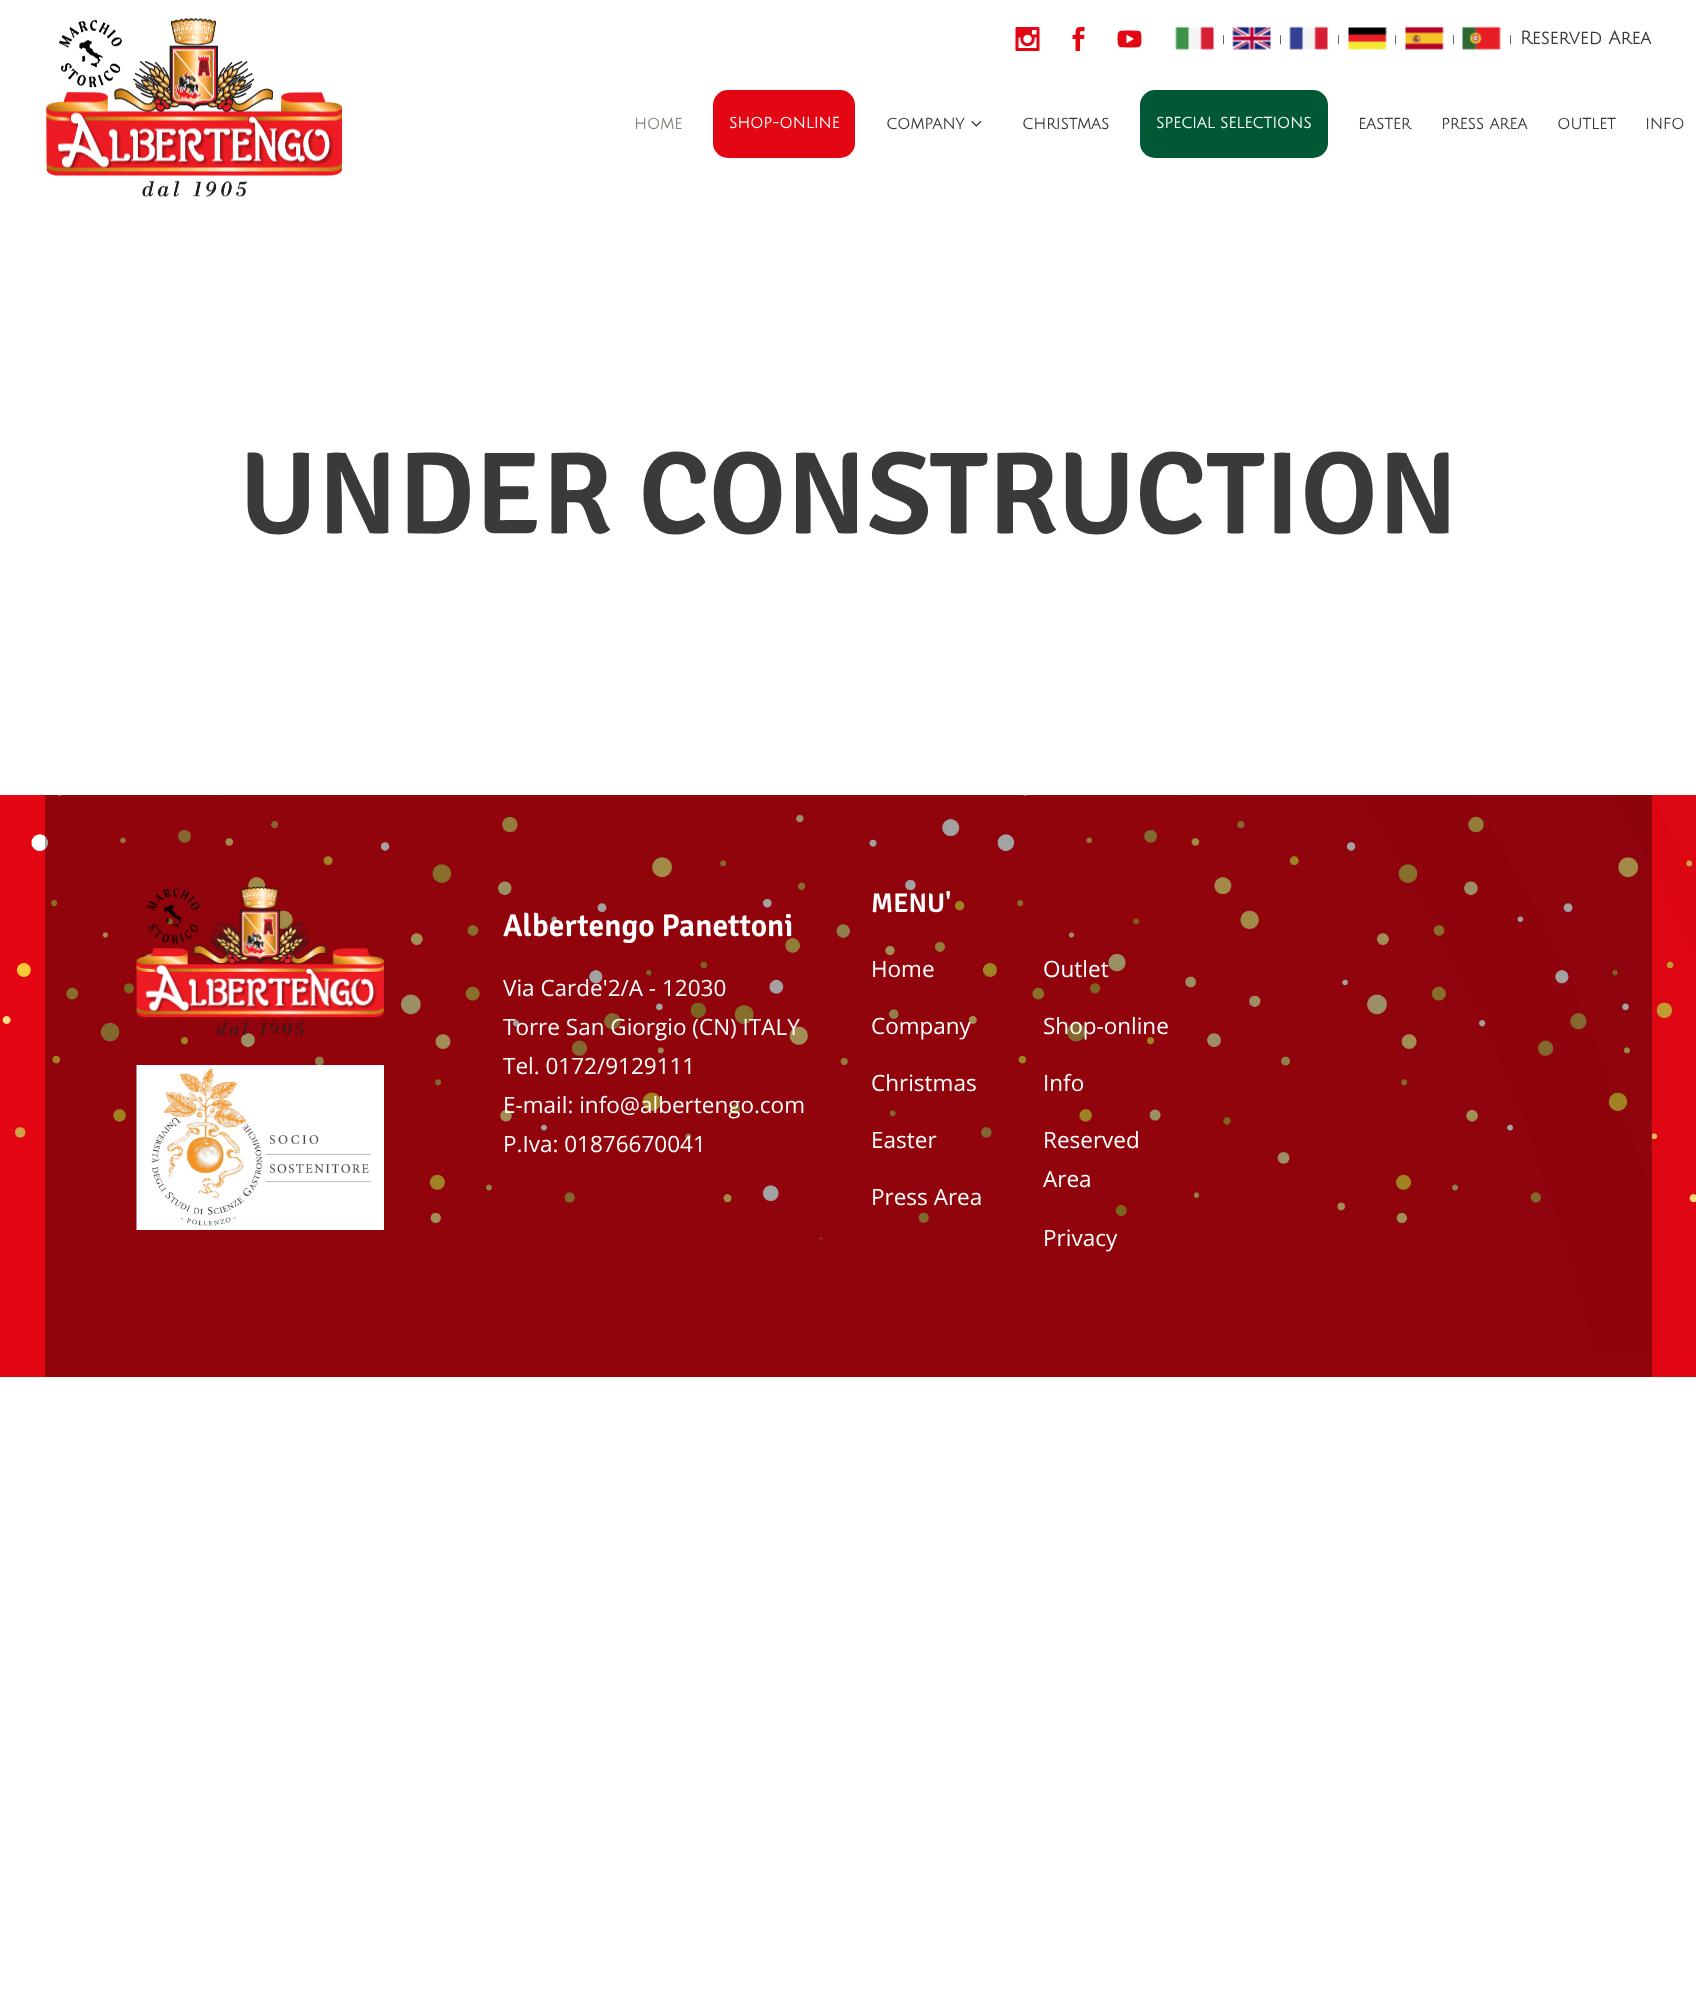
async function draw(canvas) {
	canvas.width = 1696;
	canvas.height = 2008;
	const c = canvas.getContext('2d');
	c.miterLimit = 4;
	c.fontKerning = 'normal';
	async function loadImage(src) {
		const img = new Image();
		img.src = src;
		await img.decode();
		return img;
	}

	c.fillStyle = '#fff';
	c.fillRect(0, 0, 1696, 2008);
	c.drawImage(await loadImage('img1.png'), 1015, 27, 25, 24);
	c.drawImage(await loadImage('img2.png'), 1072, 27, 13, 24);
	c.drawImage(await loadImage('img3.png'), 1117, 30, 25, 18);
	c.drawImage(await loadImage('img4.png'), 1175, 26, 39, 24);
	c.font = '9px Open Sans';
	c.fillStyle = '#000';
	c.fillText('|', 1221, 42);
	c.drawImage(await loadImage('img5.png'), 1232, 26, 39, 24);
	c.fillText('|', 1278, 42);
	c.drawImage(await loadImage('img6.png'), 1289, 26, 39, 24);
	c.fillText('|', 1336, 42);
	c.drawImage(await loadImage('img7.png'), 1348, 27, 39, 23);
	c.fillText('|', 1393, 42);
	c.drawImage(await loadImage('img8.png'), 1405, 26, 39, 24);
	c.fillText('|', 1451, 42);
	c.drawImage(await loadImage('img9.png'), 1462, 26, 39, 24);
	c.fillText('|', 1508, 42);
	c.font = 'bold 18px Julius Sans One';
	c.fillStyle = '#3a3a3a';
	c.fillText('Reserved Area', 1520, 44);
	c.drawImage(await loadImage('img10.png'), 46, 18, 297, 179);
	c.drawImage(await loadImage('img11.png'), 46, 18, 296, 179);
	c.font = 'bold 15px Julius Sans One';
	c.fillStyle = '#8a847b';
	c.fillText('HOME', 634, 129);
	c.fillStyle = '#e30613';
	c.beginPath();
	c.roundRect(714, 91, 140, 66, 14);
	c.fill();
	c.strokeStyle = '#e30613';
	c.lineWidth = 2;
	c.stroke();
	c.fillStyle = '#fff';
	c.fillText('SHOP-ONLINE', 729, 128);
	c.fillStyle = '#3a3a3a';
	c.fillText('COMPANY', 886, 129);
	c.drawImage(await loadImage('img12.png'), 971, 120, 11, 7);
	c.fillText('CHRISTMAS', 1022, 129);
	c.fillStyle = '#015835';
	c.beginPath();
	c.roundRect(1141, 91, 186, 66, 14);
	c.fill();
	c.strokeStyle = '#015835';
	c.stroke();
	c.fillStyle = '#fff';
	c.fillText('SPECIAL SELECTIONS', 1156, 128);
	c.fillStyle = '#3a3a3a';
	for (const [text, x, y] of [
		['EASTER', 1358, 129],
		['PRESS AREA', 1441, 129],
		['OUTLET', 1557, 129],
		['INFO', 1645, 129],
	]) {
		c.fillText(text, x, y);
	}
	c.font = '600 117px Signika';
	c.fillText('UNDER CONSTRUCTION', 239, 533);
	c.fillStyle = '#e30613';
	c.fillRect(0, 1351, 1696, 26);
	c.fillStyle = '#92040c';
	c.fillRect(45, 1351, 1607, 26);
	c.drawImage(await loadImage('img13.png'), 0, 795, 1696, 556);
	c.drawImage(await loadImage('img14.png'), 136, 886, 248, 149);
	c.drawImage(await loadImage('img15.png'), 136, 1065, 248, 165);
	c.font = '600 31.5px Signika';
	c.fillStyle = '#fff';
	c.fillText('Albertengo Panettoni', 503, 936);
	c.font = '22.5px Open Sans';
	for (const [text, x, y] of [
		['Via Carde\'2/A - 12030', 503, 996],
		['Torre San Giorgio (CN) ITALY', 503, 1035],
		['Tel. 0172/9129111', 503, 1074],
		['E-mail: info@albertengo.com', 503, 1113],
		['P.Iva: 01876670041', 503, 1152],
	]) {
		c.fillText(text, x, y);
	}
	c.font = '600 27px Signika';
	c.fillText('MENU\'', 871, 912);
	c.font = '22.5px Open Sans';
	for (const [text, x, y] of [
		['Home', 871, 977],
		['Outlet', 1043, 977],
		['Company', 871, 1034],
		['Shop-online', 1043, 1034],
		['Christmas', 871, 1091],
		['Info', 1043, 1091],
		['Easter', 871, 1148],
		['Reserved', 1043, 1148],
		['Area', 1043, 1187],
		['Press Area', 871, 1205],
		['Privacy', 1043, 1246],
	]) {
		c.fillText(text, x, y);
	}
}

draw(document.querySelector('canvas'));
